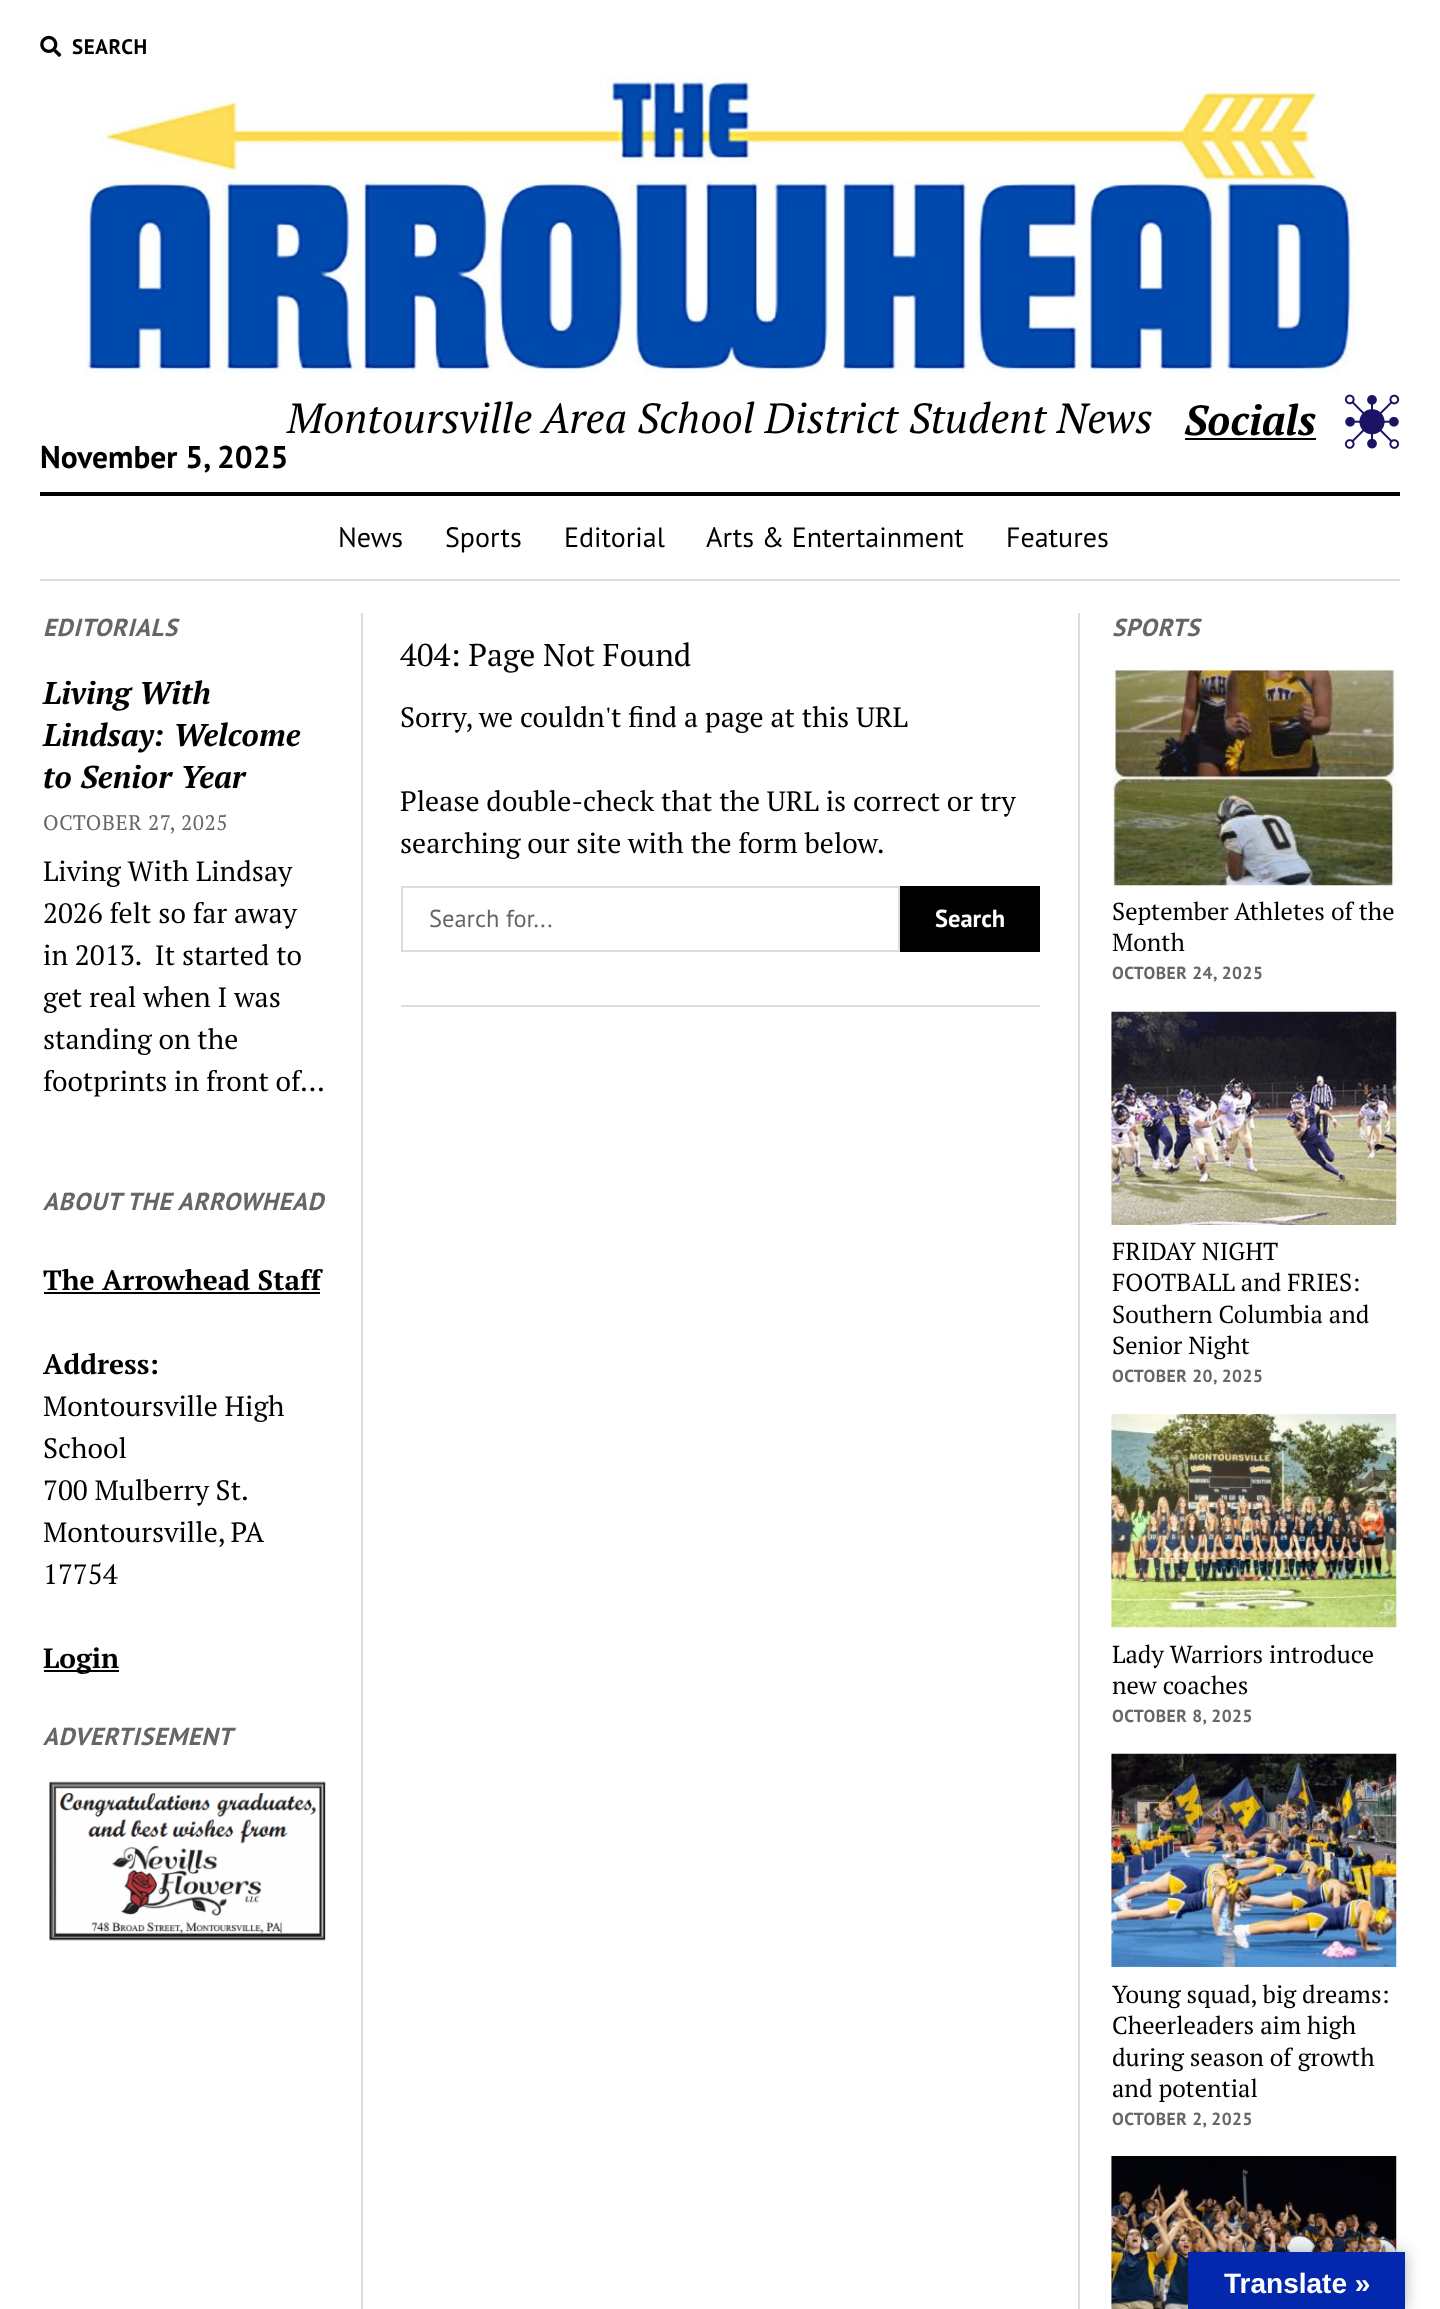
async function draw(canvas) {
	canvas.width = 1440;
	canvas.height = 2309;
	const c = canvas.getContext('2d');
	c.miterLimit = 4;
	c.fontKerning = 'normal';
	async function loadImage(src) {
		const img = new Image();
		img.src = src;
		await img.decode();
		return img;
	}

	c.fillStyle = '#fff';
	c.fillRect(0, 0, 1440, 2309);
	c.drawImage(await loadImage('img1.png'), 40, 35, 22, 22);
	c.letterSpacing = '0.6px';
	c.font = 'bold 21px PT Sans';
	c.fillStyle = '#000';
	c.fillText('SEARCH', 72, 54);
	c.drawImage(await loadImage('img2.png'), 85, 73, 1270, 300);
	c.letterSpacing = '0px';
	c.font = 'italic 42px PT Serif';
	c.fillText('Montoursville Area School District Student News', 287, 433);
	c.font = 'italic bold 42px PT Serif';
	c.fillText('Socials', 1184, 435);
	c.fillRect(1185, 438, 131, 2);
	c.drawImage(await loadImage('img3.png'), 1344, 394, 56, 55);
	c.font = 'bold 31.5px PT Sans';
	c.fillText('November 5, 2025', 40, 468);
	c.fillRect(40, 492, 1360, 4);
	c.fillStyle = '#dcdcdc';
	c.fillRect(40, 579, 1360, 2);
	c.font = '28px PT Sans';
	c.fillStyle = '#000';
	for (const [text, x, y] of [
		['News', 338, 547],
		['Sports', 445, 547],
		['Editorial', 564, 547],
		['Arts & Entertainment', 706, 547],
		['Features', 1006, 547],
	]) {
		c.fillText(text, x, y);
	}
	c.fillStyle = '#dcdcdc';
	c.fillRect(361, 613, 2, 1696);
	c.fillRect(1078, 613, 2, 1696);
	c.letterSpacing = '0.75px';
	c.font = 'italic bold 24.5px PT Sans';
	c.fillStyle = '#666';
	c.fillText('EDITORIALS', 43, 636);
	c.letterSpacing = '0px';
	c.font = 'italic bold 31.5px PT Serif';
	c.fillStyle = '#000';
	for (const [text, x, y] of [
		['Living With', 43, 704],
		['Lindsay: Welcome', 43, 746],
		['to Senior Year', 43, 788],
	]) {
		c.fillText(text, x, y);
	}
	c.letterSpacing = '0.6px';
	c.font = '21px PT Serif';
	c.fillStyle = '#666';
	c.fillText('OCTOBER 27, 2025', 43, 830);
	c.letterSpacing = '0px';
	c.font = '28px PT Serif';
	c.fillStyle = '#000';
	for (const [text, x, y] of [
		['Living With Lindsay', 43, 881],
		['2026 felt so far away', 43, 923],
		['in 2013.  It started to', 43, 965],
		['get real when I was', 43, 1007],
		['standing on the', 43, 1049],
		['footprints in front of...', 43, 1091],
	]) {
		c.fillText(text, x, y);
	}
	c.letterSpacing = '0.75px';
	c.font = 'italic bold 24.5px PT Sans';
	c.fillStyle = '#666';
	c.fillText('ABOUT THE ARROWHEAD', 43, 1210);
	c.letterSpacing = '0px';
	c.font = 'bold 28px PT Serif';
	c.fillStyle = '#000';
	c.fillText('The Arrowhead Staff', 43, 1290);
	c.fillRect(44, 1292, 276, 2);
	c.fillText('Address:', 43, 1374);
	c.font = '28px PT Serif';
	for (const [text, x, y] of [
		['Montoursville High', 43, 1416],
		['School', 43, 1458],
		['700 Mulberry St.', 43, 1500],
	]) {
		c.fillText(text, x, y);
	}
	c.wordSpacing = '-1px';
	c.fillText('Montoursville, PA', 43, 1542);
	c.wordSpacing = '0px';
	c.fillText('17754', 43, 1584);
	c.fillRect(44, 1670, 75, 2);
	c.font = 'bold 28px PT Serif';
	c.fillText('Login', 43, 1668);
	c.letterSpacing = '0.75px';
	c.font = 'italic bold 24.5px PT Sans';
	c.fillStyle = '#666';
	c.fillText('ADVERTISEMENT', 43, 1745);
	c.drawImage(await loadImage('img4.png'), 49, 1781, 277, 160);
	c.fillStyle = '#dcdcdc';
	c.fillRect(401, 1005, 639, 2);
	c.letterSpacing = '0px';
	c.font = '31.5px PT Serif';
	c.fillStyle = '#000';
	c.fillText('404: Page Not Found', 400, 666);
	c.font = '28px PT Serif';
	for (const [text, x, y] of [
		['Sorry, we couldn\'t find a page at this URL', 400, 727],
		['Please double-check that the URL is correct or try', 400, 811],
		['searching our site with the form below.', 400, 853],
	]) {
		c.fillText(text, x, y);
	}
	c.strokeStyle = '#dcdcdc';
	c.lineWidth = 2;
	c.strokeRect(402, 887, 497, 64);
	c.font = '24.5px PT Sans';
	c.fillStyle = '#666';
	c.fillText('Search for...', 429, 927);
	c.fillStyle = '#000';
	c.fillRect(900, 886, 140, 66);
	c.font = 'bold 24.5px PT Sans';
	c.fillStyle = '#fff';
	c.fillText('Search', 935, 927);
	c.letterSpacing = '0.75px';
	c.font = 'italic bold 24.5px PT Sans';
	c.fillStyle = '#666';
	c.fillText('SPORTS', 1112, 636);
	c.drawImage(await loadImage('img5.png'), 1111, 670, 286, 216);
	c.letterSpacing = '0px';
	c.font = '24.5px PT Serif';
	c.fillStyle = '#000';
	c.fillText('September Athletes of the', 1112, 920);
	c.fillText('Month', 1112, 951);
	c.letterSpacing = '0.5px';
	c.font = 'bold 17.5px PT Sans';
	c.fillStyle = '#666';
	c.fillText('OCTOBER 24, 2025', 1112, 979);
	c.drawImage(await loadImage('img6.png'), 1111, 1011, 286, 214);
	c.letterSpacing = '0px';
	c.font = '24.5px PT Serif';
	c.fillStyle = '#000';
	for (const [text, x, y] of [
		['FRIDAY NIGHT', 1112, 1260],
		['FOOTBALL and FRIES:', 1112, 1291],
		['Southern Columbia and', 1112, 1323],
		['Senior Night', 1112, 1354],
	]) {
		c.fillText(text, x, y);
	}
	c.letterSpacing = '0.5px';
	c.font = 'bold 17.5px PT Sans';
	c.fillStyle = '#666';
	c.fillText('OCTOBER 20, 2025', 1112, 1382);
	c.drawImage(await loadImage('img7.png'), 1111, 1414, 286, 214);
	c.letterSpacing = '0px';
	c.font = '24.5px PT Serif';
	c.fillStyle = '#000';
	c.fillText('Lady Warriors introduce', 1112, 1663);
	c.fillText('new coaches', 1112, 1694);
	c.letterSpacing = '0.5px';
	c.font = 'bold 17.5px PT Sans';
	c.fillStyle = '#666';
	c.fillText('OCTOBER 8, 2025', 1112, 1722);
	c.drawImage(await loadImage('img8.png'), 1111, 1753, 286, 214);
	c.letterSpacing = '0px';
	c.font = '24.5px PT Serif';
	c.fillStyle = '#000';
	for (const [text, x, y] of [
		['Young squad, big dreams:', 1112, 2003],
		['Cheerleaders aim high', 1112, 2034],
		['during season of growth', 1112, 2066],
		['and potential', 1112, 2097],
	]) {
		c.fillText(text, x, y);
	}
	c.letterSpacing = '0.5px';
	c.font = 'bold 17.5px PT Sans';
	c.fillStyle = '#666';
	c.fillText('OCTOBER 2, 2025', 1112, 2125);
	c.drawImage(await loadImage('img9.png'), 1111, 2156, 286, 153);
	c.fillStyle = '#0000004d';
	c.filter = 'blur(8px)';
	c.beginPath();
	c.rect(1188, 2252, 217, 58);
	c.fill();
	c.filter = 'none';
	c.fillStyle = '#0328ad';
	c.fillRect(1188, 2252, 217, 57);
	c.letterSpacing = '0px';
	c.font = 'bold 28px Liberation Sans';
	c.fillStyle = '#fff';
	c.fillText('Translate »', 1224, 2293);
}

draw(document.querySelector('canvas'));
